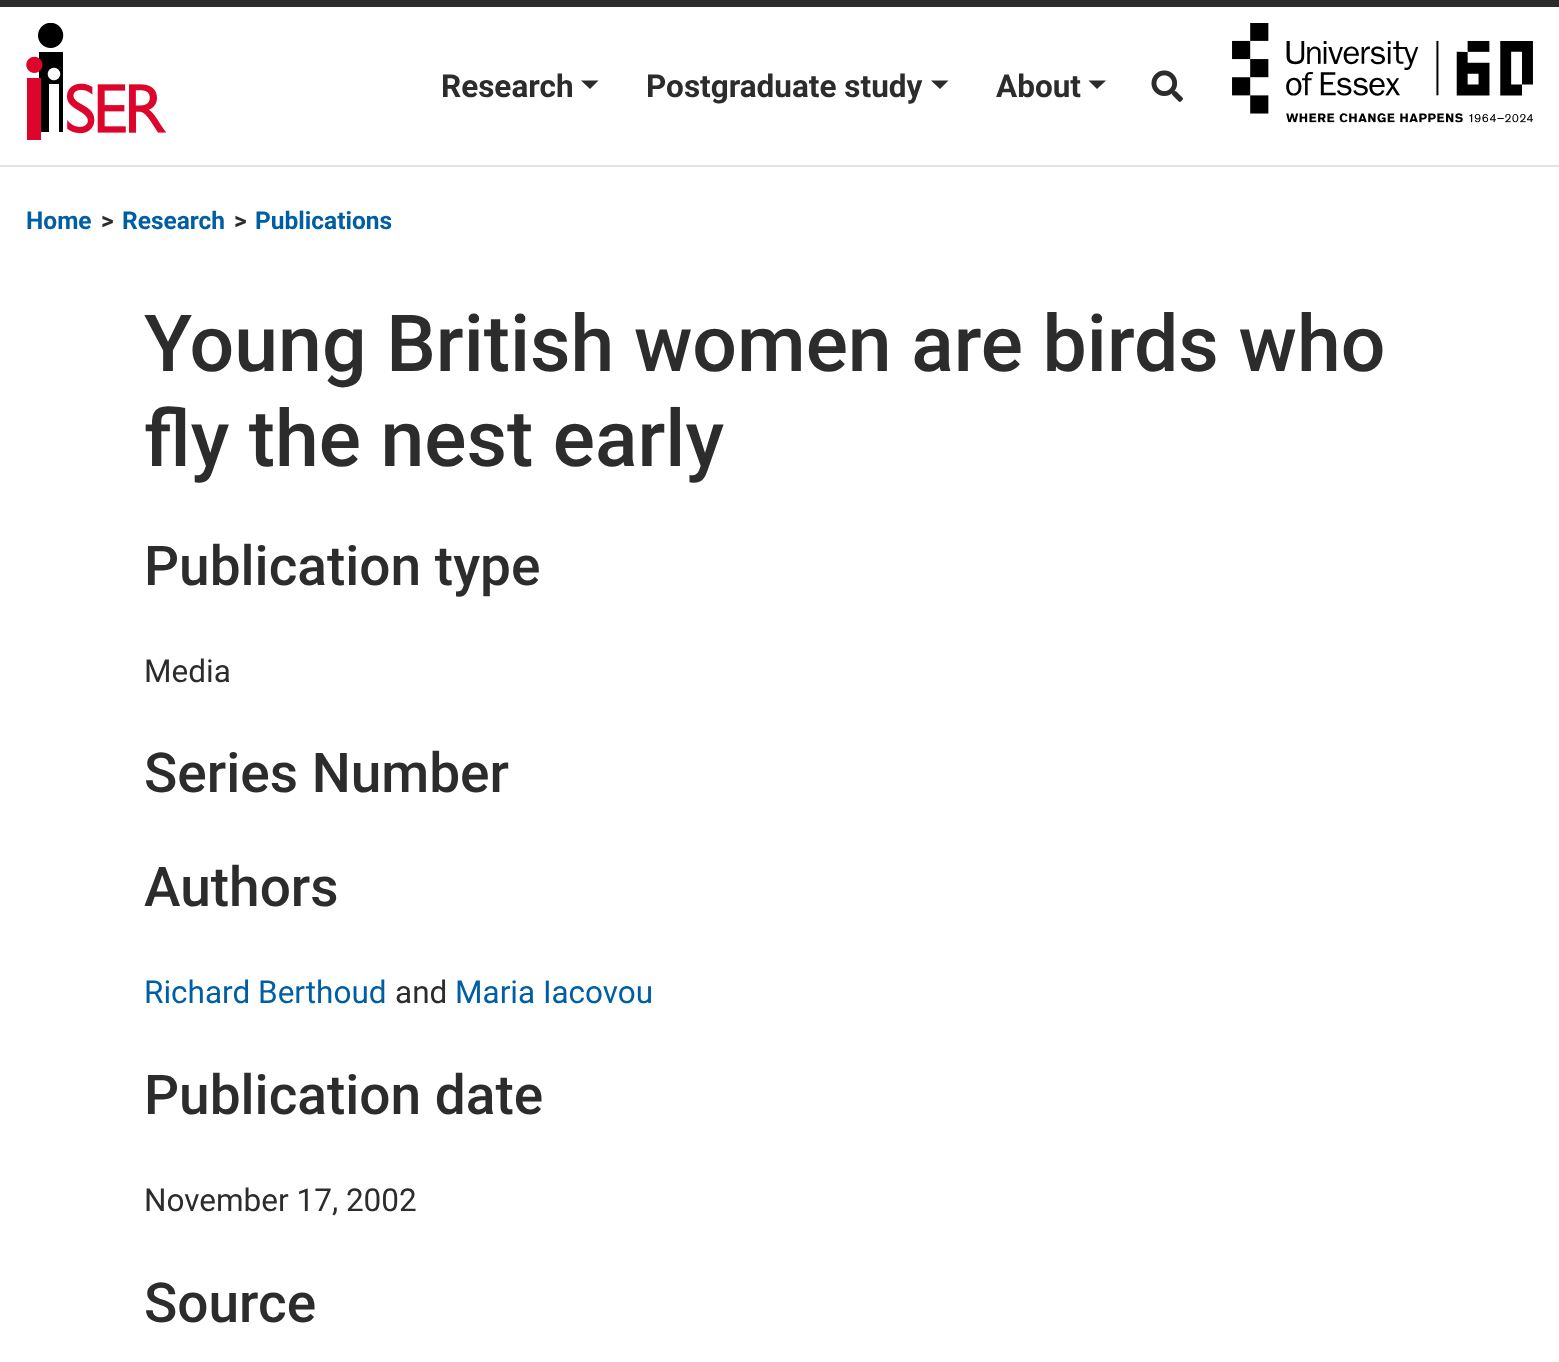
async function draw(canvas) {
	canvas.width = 1559;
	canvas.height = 1362;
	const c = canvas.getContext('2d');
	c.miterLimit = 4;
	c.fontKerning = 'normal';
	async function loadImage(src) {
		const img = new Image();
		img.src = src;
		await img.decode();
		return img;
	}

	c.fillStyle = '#fff';
	c.fillRect(0, 0, 1559, 1362);
	c.fillStyle = '#2c2c2c';
	c.fillRect(0, 0, 1559, 7);
	c.fillStyle = '#e2e2e2';
	c.fillRect(0, 165, 1559, 2);
	c.drawImage(await loadImage('img1.png'), 26, 23, 140, 117);
	c.font = 'bold 31.5px Roboto';
	c.fillStyle = '#2c2c2c';
	c.fillText('Research', 441, 97);
	c.beginPath();
	c.moveTo(581, 80.5);
	c.lineTo(598.5, 80.5);
	c.lineTo(590, 89);
	c.closePath();
	c.fill();
	c.fillText('Postgraduate study', 646, 97);
	c.beginPath();
	c.moveTo(931, 80.5);
	c.lineTo(948.5, 80.5);
	c.lineTo(940, 89);
	c.closePath();
	c.fill();
	c.fillText('About', 996, 97);
	c.beginPath();
	c.moveTo(1088.5, 80.5);
	c.lineTo(1106, 80.5);
	c.lineTo(1097, 89);
	c.closePath();
	c.fill();
	c.drawImage(await loadImage('img2.png'), 1151, 70, 32, 32);
	c.drawImage(await loadImage('img3.png'), 1232, 23, 301, 100);
	c.font = 'bold 24.5px Roboto';
	c.fillStyle = '#005ea5';
	c.fillText('Home', 26, 229);
	c.fillStyle = '#2c2c2c';
	c.fillText('>', 101, 229);
	c.fillStyle = '#005ea5';
	c.fillText('Research', 122, 229);
	c.fillStyle = '#2c2c2c';
	c.fillText('>', 234, 229);
	c.fillStyle = '#005ea5';
	c.fillText('Publications', 255, 229);
	c.font = '500 78.75px Roboto';
	c.fillStyle = '#2c2c2c';
	c.fillText('Young British women are birds who', 144, 371);
	c.fillText('fly the nest early', 144, 466);
	c.font = '500 55px Roboto';
	c.fillText('Publication type', 144, 585);
	c.font = '31.5px Roboto';
	c.fillText('Media', 144, 682);
	c.font = '500 55px Roboto';
	c.fillText('Series Number', 144, 792);
	c.fillText('Authors', 144, 906);
	c.font = '31.5px Roboto';
	c.fillStyle = '#005ea5';
	c.fillText('Richard Berthoud', 144, 1003);
	c.fillStyle = '#2c2c2c';
	c.fillText('and', 395, 1003);
	c.fillStyle = '#005ea5';
	c.fillText('Maria Iacovou', 455, 1003);
	c.font = '500 55px Roboto';
	c.fillStyle = '#2c2c2c';
	c.fillText('Publication date', 144, 1114);
	c.font = '31.5px Roboto';
	c.fillText('November 17, 2002', 144, 1211);
	c.font = '500 55px Roboto';
	c.fillText('Source', 144, 1322);
}

draw(document.querySelector('canvas'));
